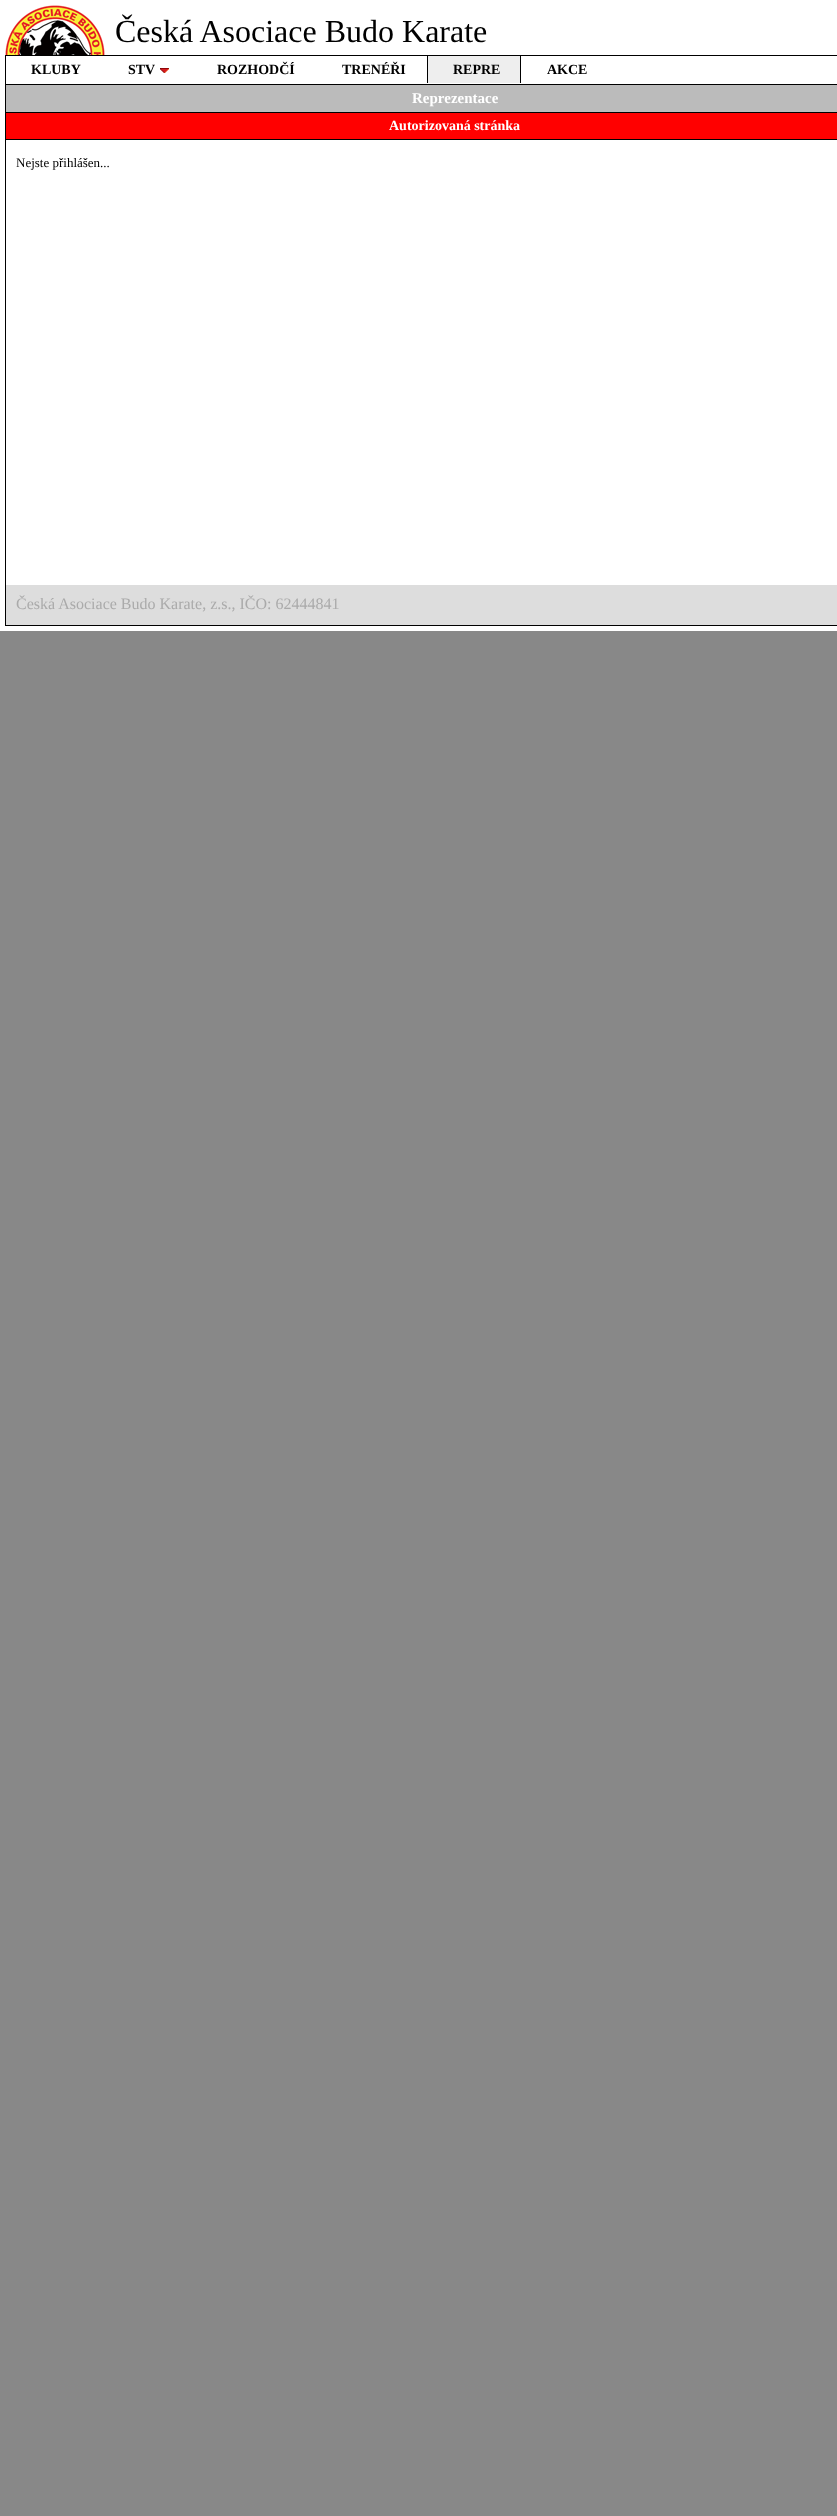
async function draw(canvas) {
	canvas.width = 837;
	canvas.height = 2516;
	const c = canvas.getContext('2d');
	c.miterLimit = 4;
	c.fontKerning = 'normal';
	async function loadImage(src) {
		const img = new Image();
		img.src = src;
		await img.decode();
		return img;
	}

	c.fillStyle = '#888';
	c.fillRect(0, 0, 837, 2516);
	c.fillStyle = '#fff';
	c.fillRect(0, 0, 837, 631);
	c.drawImage(await loadImage('img1.png'), 5, 5, 100, 50);
	c.font = '32px Liberation Serif';
	c.fillStyle = '#000';
	c.fillText('Česká Asociace Budo Karate', 115, 42);
	c.strokeStyle = '#000';
	c.strokeRect(5.5, 55.5, 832, 29);
	c.font = 'bold 14px Liberation Serif';
	c.fillText('KLUBY', 31, 74);
	c.fillText('STV', 128, 74);
	c.drawImage(await loadImage('img2.png'), 160, 68, 9, 5);
	c.fillText('ROZHODČÍ', 217, 74);
	c.fillText('TRENÉŘI', 342, 74);
	c.fillStyle = '#eee';
	c.fillRect(428, 56, 92, 27);
	c.fillStyle = '#000';
	c.fillText('REPRE', 453, 74);
	c.fillRect(520, 56, 1, 27);
	c.fillRect(427, 56, 1, 27);
	c.fillText('AKCE', 547, 74);
	for (const [x, y, w, h, color] of [
		[5, 85, 1, 500, '#000'],
		[6, 85, 831, 27, '#bbb'],
		[6, 112, 831, 1, '#000'],
	]) {
		c.fillStyle = color;
		c.fillRect(x, y, w, h);
	}
	c.font = 'bold 15px Liberation Serif';
	c.fillStyle = '#fff';
	c.fillText('Reprezentace', 412, 103);
	c.fillStyle = '#f00';
	c.fillRect(6, 113, 831, 26);
	c.fillStyle = '#000';
	c.fillRect(6, 139, 831, 1);
	c.font = 'bold 14px Liberation Serif';
	c.fillStyle = '#fff';
	c.fillText('Autorizovaná stránka', 389, 130);
	c.font = '13px Liberation Serif';
	c.fillStyle = '#000';
	c.fillText('Nejste přihlášen...', 16, 167);
	for (const [x, y, w, h, color] of [
		[6, 585, 831, 40, '#ddd'],
		[5, 625, 832, 1, '#000'],
		[5, 585, 1, 41, '#000'],
	]) {
		c.fillStyle = color;
		c.fillRect(x, y, w, h);
	}
	c.font = '16px Liberation Serif';
	c.fillStyle = '#aaa';
	c.fillText('Česká Asociace Budo Karate, z.s., IČO: 62444841', 16, 609);
}

draw(document.querySelector('canvas'));
